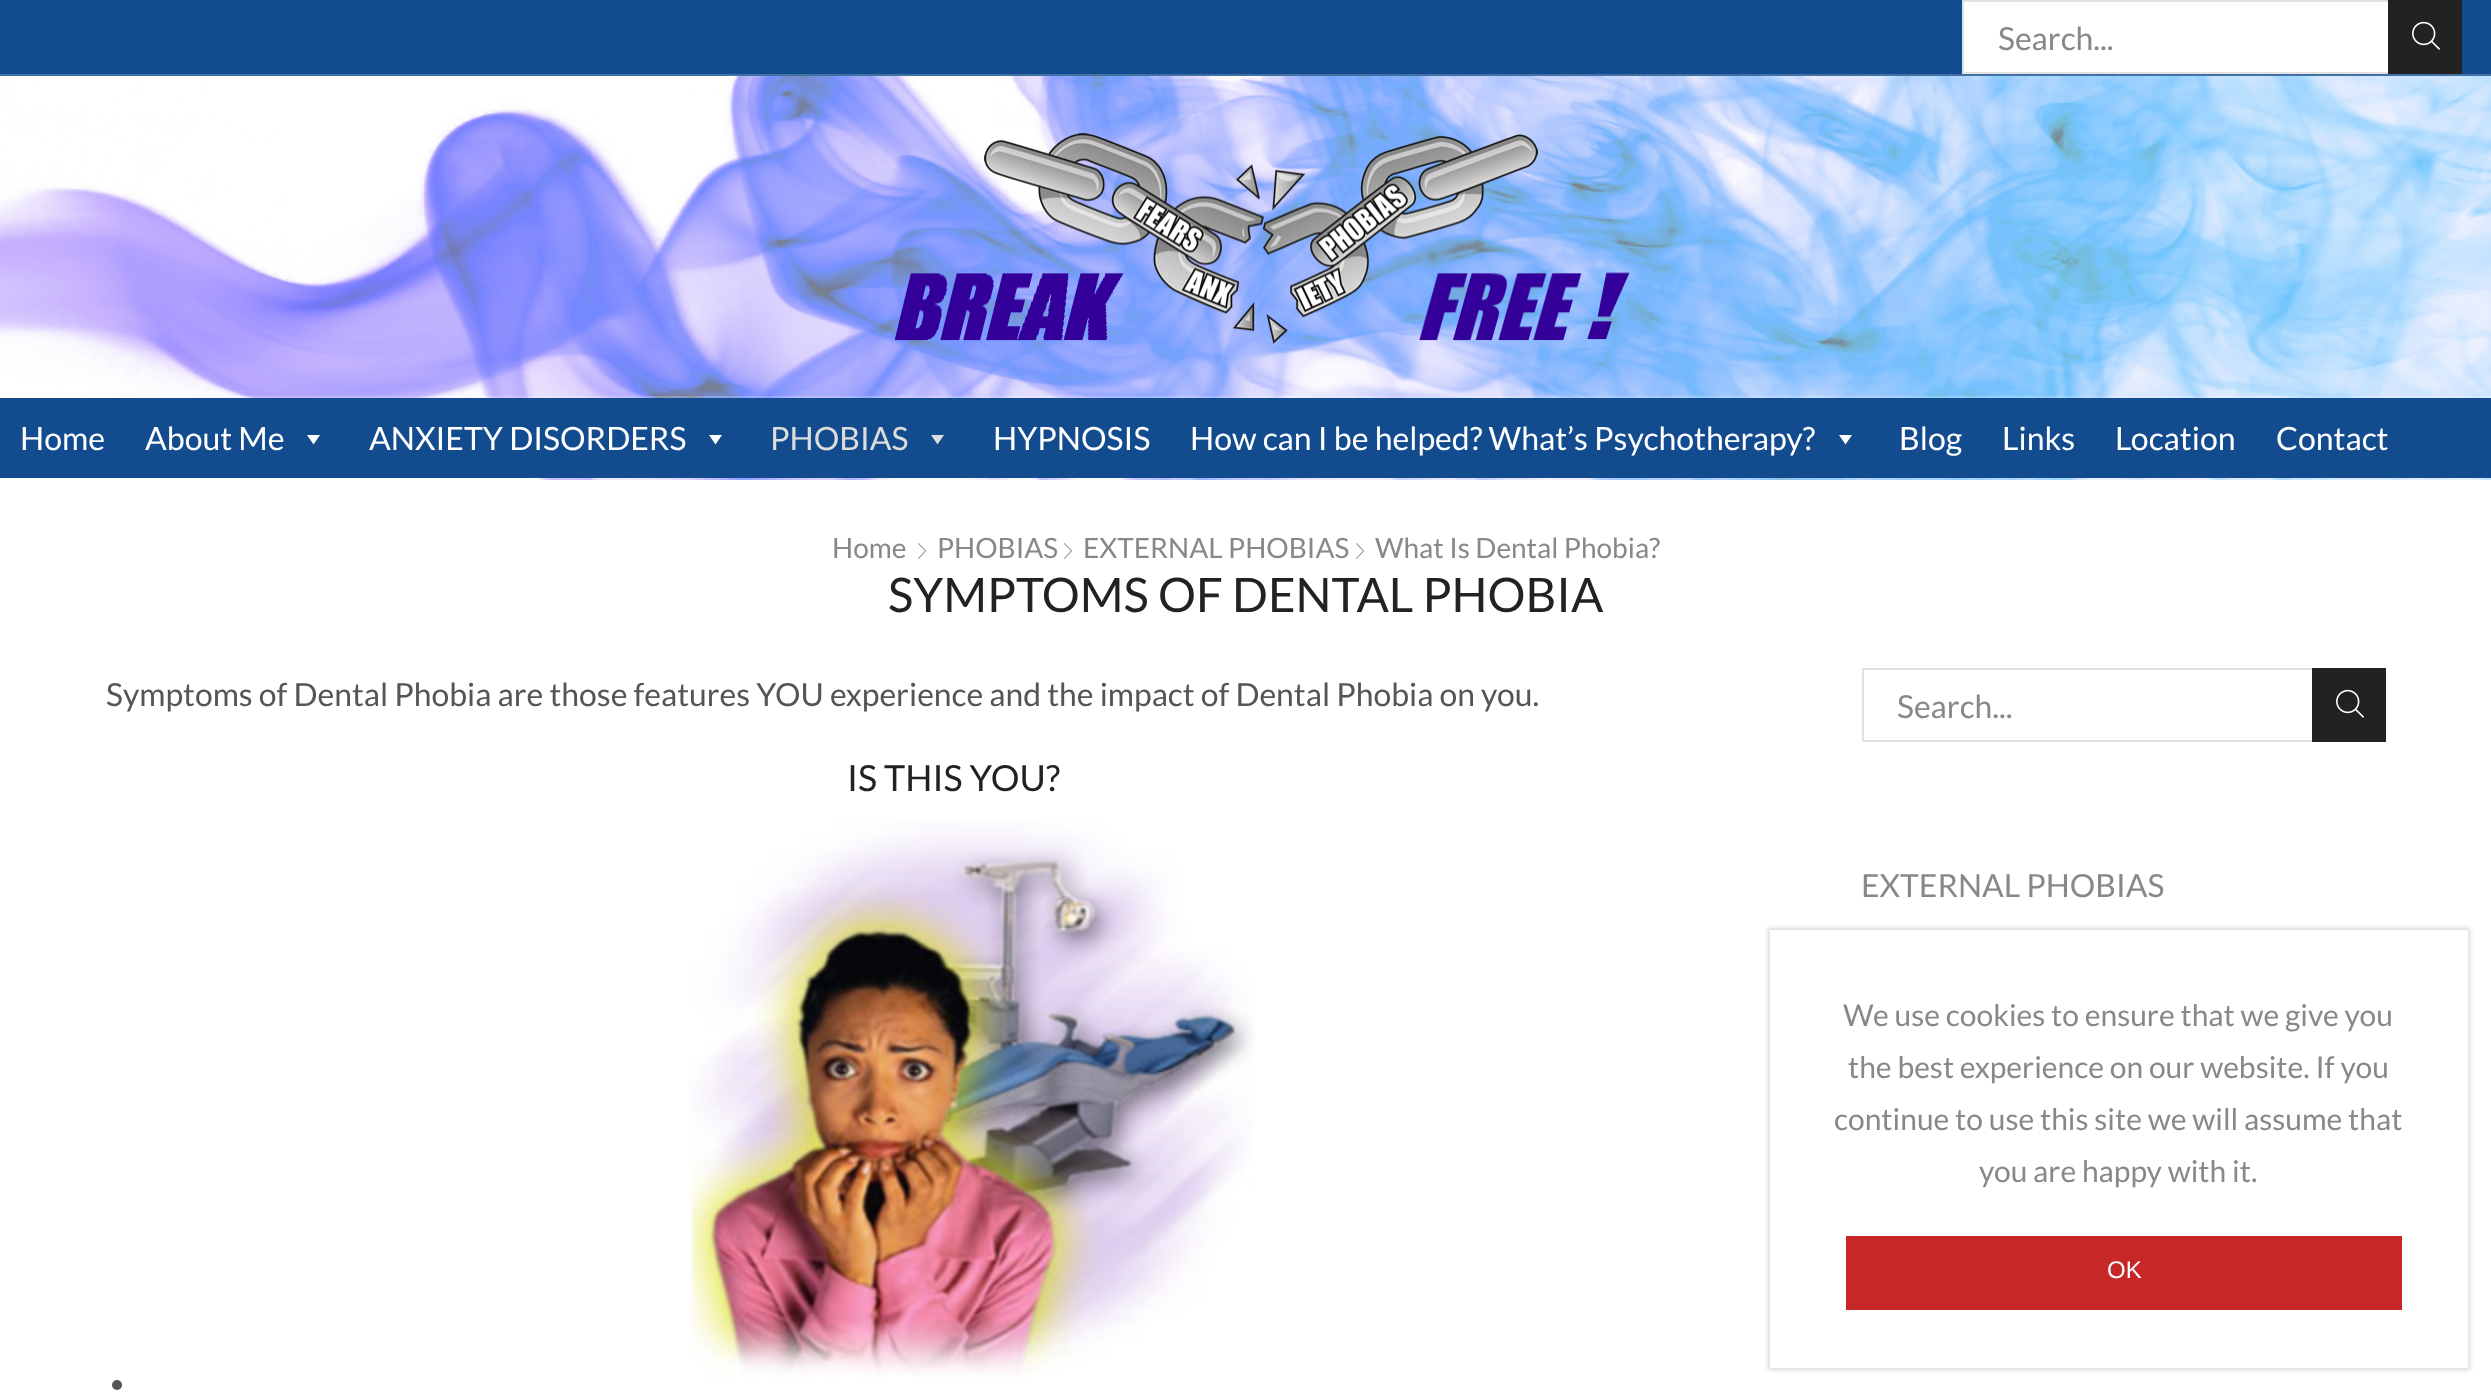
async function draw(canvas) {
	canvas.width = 2491;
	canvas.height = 1392;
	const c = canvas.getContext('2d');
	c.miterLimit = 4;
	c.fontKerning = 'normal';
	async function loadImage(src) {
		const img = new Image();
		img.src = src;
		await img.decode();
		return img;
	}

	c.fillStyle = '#fff';
	c.fillRect(0, 0, 2491, 1392);
	for (const [x, y, w, h, color] of [
		[0, 0, 2491, 74, '#124c8e'],
		[0, 74, 2491, 2, '#4170a5'],
		[1964, 2, 424, 70, '#fff'],
	]) {
		c.fillStyle = color;
		c.fillRect(x, y, w, h);
	}
	c.strokeStyle = '#e1e1e1';
	c.lineWidth = 2;
	c.strokeRect(1963, 1, 498, 72);
	c.font = '31.9px Lato';
	c.fillStyle = '#888';
	c.fillText('Search...', 1998, 50);
	c.fillStyle = '#222';
	c.fillRect(2388, 0, 74, 74);
	c.drawImage(await loadImage('img1.png'), 2412, 21, 28, 29);
	c.drawImage(await loadImage('img2.png'), 0, 76, 2491, 404);
	c.drawImage(await loadImage('img3.png'), 895, 133, 735, 211);
	c.fillStyle = '#ffffff33';
	c.fillRect(239, 396, 2252, 2);
	c.fillStyle = '#124c8e';
	c.fillRect(0, 398, 2491, 80);
	c.font = '32px Lato';
	c.fillStyle = '#fff';
	c.fillText('Home', 20, 450);
	c.fillText('About Me', 145, 450);
	c.beginPath();
	c.moveTo(320, 435);
	c.lineTo(313.5, 444.5);
	c.lineTo(307, 435);
	c.closePath();
	c.fill();
	c.fillText('ANXIETY DISORDERS', 369, 450);
	c.beginPath();
	c.moveTo(722, 435);
	c.lineTo(715.5, 444.5);
	c.lineTo(709, 435);
	c.closePath();
	c.fill();
	c.fillStyle = '#ddd';
	c.fillText('PHOBIAS', 770, 450);
	c.beginPath();
	c.moveTo(944, 435);
	c.lineTo(937.5, 444.5);
	c.lineTo(931, 435);
	c.closePath();
	c.fill();
	c.fillStyle = '#fff';
	c.fillText('HYPNOSIS', 993, 450);
	c.fillText('How can I be helped? What’s Psychotherapy?', 1190, 450);
	c.beginPath();
	c.moveTo(1852, 435);
	c.lineTo(1845.5, 444.5);
	c.lineTo(1839, 435);
	c.closePath();
	c.fill();
	for (const [text, x, y] of [
		['Blog', 1899, 450],
		['Links', 2002, 450],
		['Location', 2115, 450],
		['Contact', 2276, 450],
	]) {
		c.fillText(text, x, y);
	}
	c.fillStyle = '#ffffff33';
	c.fillRect(539, 478, 1952, 2);
	c.font = '28px Lato';
	c.fillStyle = '#888';
	c.fillText('Home', 832, 558);
	c.drawImage(await loadImage('img4.png'), 918, 543, 8, 16);
	c.fillText('PHOBIAS', 937, 558);
	c.drawImage(await loadImage('img4.png'), 1064, 543, 8, 16);
	c.fillText('EXTERNAL PHOBIAS', 1083, 558);
	c.drawImage(await loadImage('img4.png'), 1356, 543, 8, 16);
	c.fillText('What Is Dental Phobia?', 1375, 558);
	c.font = '47.6px Lato';
	c.fillStyle = '#222';
	c.fillText('SYMPTOMS OF DENTAL PHOBIA', 888, 612);
	c.font = '31.9px Lato';
	c.fillStyle = '#555';
	c.fillText('Symptoms of Dental Phobia are those features YOU experience and the impact of Dental Phobia on you.', 106, 706);
	c.font = '36px Lato';
	c.fillStyle = '#222';
	c.fillText('IS THIS YOU?', 847, 791);
	c.drawImage(await loadImage('img5.png'), 689, 821, 566, 557);
	c.fillStyle = '#555';
	c.beginPath();
	c.arc(117, 1385, 5, 0, 2 * Math.PI);
	c.fill();
	c.strokeRect(1863, 669, 522, 72);
	c.font = '31.9px Lato';
	c.fillStyle = '#888';
	c.fillText('Search...', 1897, 718);
	c.fillStyle = '#222';
	c.fillRect(2312, 668, 74, 74);
	c.drawImage(await loadImage('img1.png'), 2336, 689, 28, 29);
	c.fillStyle = '#888';
	c.fillText('EXTERNAL PHOBIAS', 1861, 897);
	c.save();
	c.beginPath();
	c.moveTo(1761, 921);
	c.lineTo(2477, 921);
	c.lineTo(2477, 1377);
	c.lineTo(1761, 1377);
	c.closePath();
	c.moveTo(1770, 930);
	c.lineTo(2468, 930);
	c.lineTo(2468, 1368);
	c.lineTo(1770, 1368);
	c.closePath();
	c.clip('evenodd');
	c.fillStyle = '#00000026';
	c.filter = 'blur(2px)';
	c.beginPath();
	c.rect(1768, 928, 702, 442);
	c.fill();
	c.filter = 'none';
	c.restore();
	c.font = '30px Lato';
	for (const [text, x, y] of [
		['We use cookies to ensure that we give you', 1843, 1026],
		['the best experience on our website. If you', 1848, 1078],
		['continue to use this site we will assume that', 1834, 1130],
		['you are happy with it.', 1979, 1182],
	]) {
		c.fillText(text, x, y);
	}
	c.fillStyle = '#c62828';
	c.fillRect(1846, 1236, 556, 74);
	c.font = '24px Liberation Sans';
	c.fillStyle = '#fff';
	c.fillText('OK', 2107, 1278);
}

draw(document.querySelector('canvas'));
